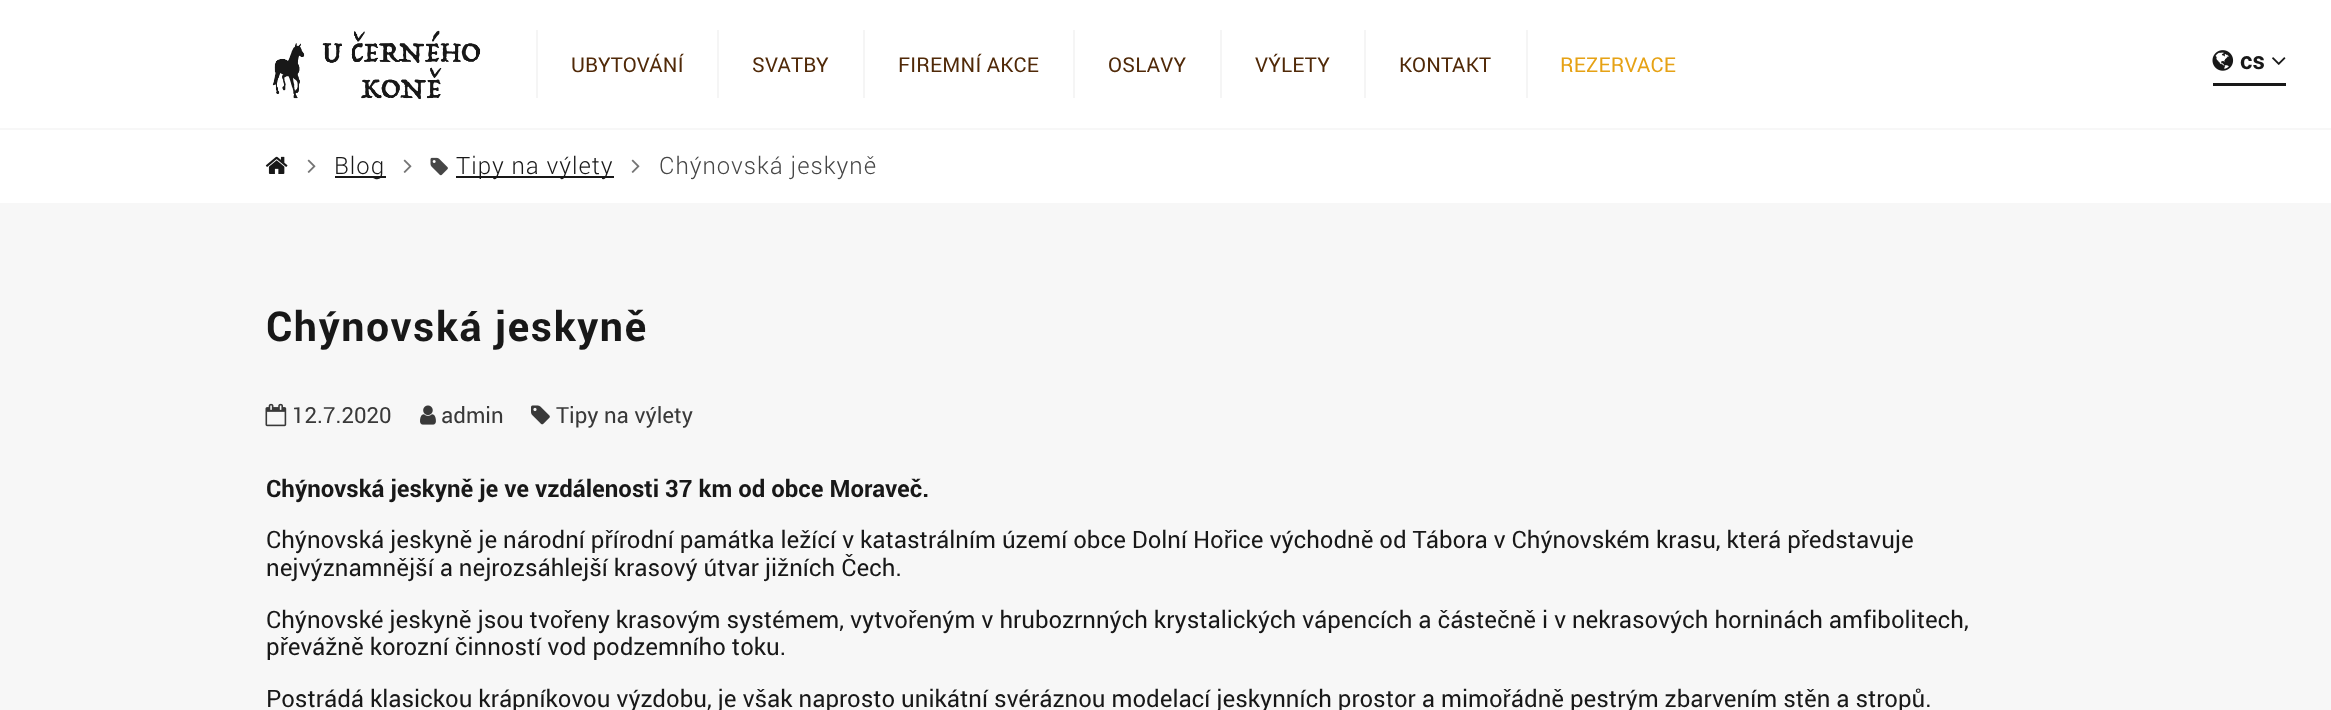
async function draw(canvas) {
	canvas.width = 2331;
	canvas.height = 710;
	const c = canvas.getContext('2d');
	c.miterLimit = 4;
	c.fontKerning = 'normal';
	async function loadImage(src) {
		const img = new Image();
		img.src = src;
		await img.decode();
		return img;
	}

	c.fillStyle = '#f7f7f7';
	c.fillRect(0, 0, 2331, 710);
	c.fillStyle = '#fff';
	c.fillRect(0, 0, 2331, 128);
	c.drawImage(await loadImage('img1.png'), 272, 30, 209, 70);
	c.fillStyle = '#f5f5f5';
	c.fillRect(536, 30, 2, 68);
	c.letterSpacing = '0.25px';
	c.font = '20.5px Roboto';
	c.fillStyle = '#502908';
	c.fillText('UBYTOVÁNÍ', 571, 72);
	c.fillStyle = '#f5f5f5';
	c.fillRect(717, 30, 2, 68);
	c.fillStyle = '#502908';
	c.fillText('SVATBY', 752, 72);
	c.fillStyle = '#f5f5f5';
	c.fillRect(863, 30, 2, 68);
	c.fillStyle = '#502908';
	c.fillText('FIREMNÍ AKCE', 898, 72);
	c.fillStyle = '#f5f5f5';
	c.fillRect(1073, 30, 2, 68);
	c.fillStyle = '#502908';
	c.fillText('OSLAVY', 1108, 72);
	c.fillStyle = '#f5f5f5';
	c.fillRect(1220, 30, 2, 68);
	c.fillStyle = '#502908';
	c.fillText('VÝLETY', 1255, 72);
	c.fillStyle = '#f5f5f5';
	c.fillRect(1364, 30, 2, 68);
	c.fillStyle = '#502908';
	c.fillText('KONTAKT', 1399, 72);
	c.fillStyle = '#f5f5f5';
	c.fillRect(1526, 30, 2, 68);
	c.fillStyle = '#e6a215';
	c.fillText('REZERVACE', 1560, 72);
	c.fillStyle = '#181818';
	c.fillRect(2213, 83, 73, 3);
	c.drawImage(await loadImage('img2.png'), 2212, 50, 22, 21);
	c.letterSpacing = '0px';
	c.font = 'bold 24px Roboto';
	c.fillText('cs', 2240, 69);
	c.drawImage(await loadImage('img3.png'), 2272, 57, 14, 8);
	c.fillStyle = '#fff';
	c.fillRect(0, 130, 2331, 73);
	c.drawImage(await loadImage('img4.png'), 265, 156, 23, 18);
	c.drawImage(await loadImage('img5.png'), 307, 159, 9, 14);
	c.fillStyle = '#181818';
	c.fillRect(335, 176, 51, 2);
	c.letterSpacing = '1px';
	c.font = '300 24px Roboto';
	c.fillText('Blog', 334, 174);
	c.drawImage(await loadImage('img5.png'), 403, 159, 9, 14);
	c.drawImage(await loadImage('img6.png'), 430, 157, 18, 19);
	c.fillRect(456, 176, 158, 2);
	c.fillText('Tipy na výlety', 456, 174);
	c.drawImage(await loadImage('img5.png'), 631, 159, 9, 14);
	c.fillStyle = '#464646';
	c.fillText('Chýnovská jeskyně', 659, 174);
	c.letterSpacing = '1.6px';
	c.font = 'bold 41.1px Roboto';
	c.fillStyle = '#181818';
	c.fillText('Chýnovská jeskyně', 266, 341);
	c.drawImage(await loadImage('img7.png'), 265, 403, 22, 24);
	c.letterSpacing = '0px';
	c.font = '22.25px Roboto';
	c.fillStyle = '#393939';
	c.fillText('12.7.2020', 292, 423);
	c.drawImage(await loadImage('img8.png'), 420, 405, 16, 20);
	c.fillText('admin', 441, 423);
	c.drawImage(await loadImage('img9.png'), 531, 405, 19, 20);
	c.fillText('Tipy na výlety', 556, 423);
	c.font = 'bold 24px Roboto';
	c.fillStyle = '#181818';
	c.fillText('Chýnovská jeskyně je ve vzdálenosti 37 km od obce Moraveč.', 266, 497);
	c.font = '24px Roboto';
	for (const [text, x, y] of [
		['Chýnovská jeskyně je národní přírodní památka ležící v katastrálním území obce Dolní Hořice východně od Tábora v Chýnovském krasu, která představuje', 266, 548],
		['nejvýznamnější a nejrozsáhlejší krasový útvar jižních Čech.', 266, 576],
		['Chýnovské jeskyně jsou tvořeny krasovým systémem, vytvořeným v hrubozrnných krystalických vápencích a částečně i v nekrasových horninách amfibolitech,', 266, 628],
		['převážně korozní činností vod podzemního toku.', 266, 655],
		['Postrádá klasickou krápníkovou výzdobu, je však naprosto unikátní svéráznou modelací jeskynních prostor a mimořádně pestrým zbarvením stěn a stropů.', 266, 707],
	]) {
		c.fillText(text, x, y);
	}
}

draw(document.querySelector('canvas'));
